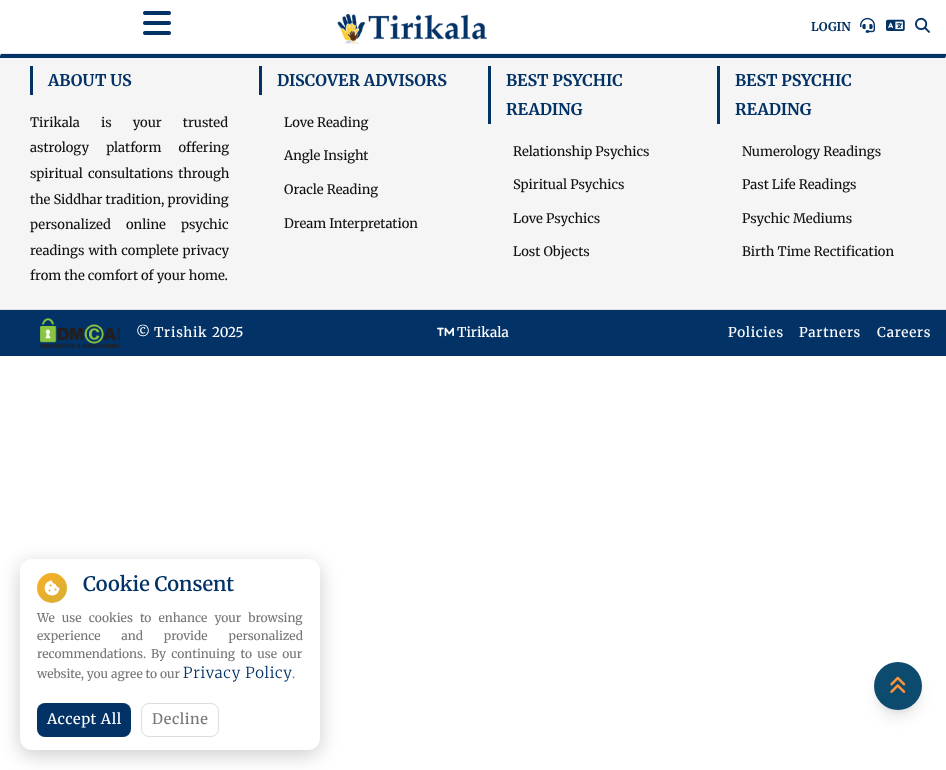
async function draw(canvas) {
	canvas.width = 946;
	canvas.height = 770;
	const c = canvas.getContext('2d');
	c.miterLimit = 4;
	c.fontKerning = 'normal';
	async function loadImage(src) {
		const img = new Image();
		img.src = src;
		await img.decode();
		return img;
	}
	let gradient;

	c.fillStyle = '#fff';
	c.fillRect(0, 0, 946, 770);
	c.fillStyle = '#f5f5f5';
	c.fillRect(0, 54, 946, 255);
	c.save();
	c.beginPath();
	c.rect(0, 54, 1, 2);
	c.clip();
	c.fillStyle = '#0000001a';
	c.filter = 'blur(1.5px)';
	c.beginPath();
	c.rect(0, 1, 946, 54);
	c.fill();
	c.filter = 'none';
	c.restore();
	c.fillStyle = '#e5e7eb';
	c.fillRect(0, 53, 946, 1);
	c.drawImage(await loadImage('img1.png'), 143, 11, 28, 24);
	c.drawImage(await loadImage('img2.png'), 337, 13, 150, 32);
	c.font = 'bold 12px Merriweather';
	c.fillStyle = '#033266';
	c.fillText('LOGIN', 811, 31);
	c.drawImage(await loadImage('img3.png'), 860, 17, 15, 16);
	c.drawImage(await loadImage('img4.png'), 886, 19, 19, 12);
	c.drawImage(await loadImage('img5.png'), 915, 17, 15, 16);
	c.beginPath();
	c.moveTo(1, 54);
	c.lineTo(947, 54);
	c.lineTo(945, 58);
	c.lineTo(-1, 58);
	c.closePath();
	c.fill();
	c.fillStyle = '#dee2e6';
	c.fillRect(0, 309, 946, 1);
	c.fillStyle = '#033266';
	c.fillRect(30, 66, 3, 29);
	c.font = 'bold 16px Merriweather';
	c.fillText('ABOUT US', 48, 86);
	c.wordSpacing = '18px';
	c.font = '500 13px Merriweather';
	c.fillStyle = '#111';
	c.fillText('Tirikala is your trusted', 30, 127);
	c.wordSpacing = '14px';
	c.fillText('astrology platform offering', 30, 152);
	c.wordSpacing = '2px';
	c.fillText('spiritual consultations through', 30, 178);
	c.wordSpacing = '0px';
	c.fillText('the Siddhar tradition, providing', 30, 204);
	c.wordSpacing = '12px';
	c.fillText('personalized online psychic', 30, 229);
	c.wordSpacing = '1px';
	c.fillText('readings with complete privacy', 30, 255);
	c.wordSpacing = '0px';
	c.fillText('from the comfort of your home.', 30, 280);
	c.fillStyle = '#033266';
	c.fillRect(259, 66, 3, 29);
	c.font = 'bold 16px Merriweather';
	c.fillText('DISCOVER ADVISORS', 277, 86);
	c.font = '500 13px Merriweather';
	c.fillStyle = '#111';
	for (const [text, x, y] of [
		['Love Reading', 284, 127],
		['Angle Insight', 284, 160],
		['Oracle Reading', 284, 194],
		['Dream Interpretation', 284, 228],
	]) {
		c.fillText(text, x, y);
	}
	c.fillStyle = '#033266';
	c.fillRect(488, 66, 3, 58);
	c.font = 'bold 16px Merriweather';
	c.fillText('BEST PSYCHIC', 506, 86);
	c.fillText('READING', 506, 115);
	c.font = '500 13px Merriweather';
	c.fillStyle = '#111';
	for (const [text, x, y] of [
		['Relationship Psychics', 513, 156],
		['Spiritual Psychics', 513, 189],
		['Love Psychics', 513, 223],
		['Lost Objects', 513, 256],
	]) {
		c.fillText(text, x, y);
	}
	c.fillStyle = '#033266';
	c.fillRect(717, 66, 3, 58);
	c.font = 'bold 16px Merriweather';
	c.fillText('BEST PSYCHIC', 735, 86);
	c.fillText('READING', 735, 115);
	c.font = '500 13px Merriweather';
	c.fillStyle = '#111';
	for (const [text, x, y] of [
		['Numerology Readings', 742, 156],
		['Past Life Readings', 742, 189],
		['Psychic Mediums', 742, 223],
		['Birth Time Rectification', 742, 256],
	]) {
		c.fillText(text, x, y);
	}
	c.fillStyle = '#033266';
	c.fillRect(0, 310, 946, 46);
	c.drawImage(await loadImage('img6.png'), 40, 318, 80, 30);
	c.font = '500 13.5px Merriweather';
	c.fillStyle = '#fff';
	c.fillText('©', 136, 337);
	c.letterSpacing = '0.75px';
	c.fillText('Trishik', 154, 337);
	c.letterSpacing = '0px';
	c.fillText('2025', 212, 337);
	c.drawImage(await loadImage('img7.png'), 437, 327, 17, 10);
	c.fillText('Tirikala', 457, 337);
	c.letterSpacing = '0.75px';
	for (const [text, x, y] of [
		['Policies', 728, 337],
		['Partners', 799, 337],
		['Careers', 877, 337],
	]) {
		c.fillText(text, x, y);
	}
	c.fillStyle = '#0000001a';
	c.filter = 'blur(3px)';
	c.beginPath();
	c.roundRect(878, 670, 40, 40, 20);
	c.fill();
	c.filter = 'none';
	c.filter = 'blur(7.5px)';
	c.beginPath();
	c.roundRect(877, 675, 42, 42, 21);
	c.fill();
	c.filter = 'none';
	c.fillStyle = '#0c4a6e';
	c.beginPath();
	c.arc(898, 686, 24, 0, 2 * Math.PI);
	c.fill();
	c.drawImage(await loadImage('img8.png'), 890, 676, 16, 17);
	c.fillStyle = '#00000033';
	c.filter = 'blur(10px)';
	c.beginPath();
	c.roundRect(20, 564, 300, 191, 12);
	c.fill();
	c.filter = 'none';
	c.fillStyle = '#fff';
	c.beginPath();
	c.roundRect(20, 559, 300, 191, 12);
	c.fill();
	gradient = c.createLinearGradient(37, 573, 67, 603);
	gradient.addColorStop(0, '#fcae24');
	gradient.addColorStop(1, '#d4af37');
	c.fillStyle = gradient;
	c.beginPath();
	c.arc(52, 588, 15, 0, 2 * Math.PI);
	c.fill();
	c.drawImage(await loadImage('img9.png'), 44, 580, 16, 16);
	c.letterSpacing = '0px';
	c.font = '600 20px Merriweather';
	c.fillStyle = '#033266';
	c.fillText('Cookie Consent', 83, 591);
	c.wordSpacing = '4.25px';
	c.font = '500 12px Merriweather';
	c.fillStyle = '#777';
	c.fillText('We use cookies to enhance your browsing', 37, 622);
	c.wordSpacing = '18px';
	c.fillText('experience and provide personalized', 37, 640);
	c.wordSpacing = '0px';
	c.fillText('recommendations.', 37, 658);
	c.wordSpacing = '2.5px';
	c.fillText('By continuing to use our', 151, 658);
	c.wordSpacing = '0px';
	c.fillText('website, you agree to our', 37, 678);
	c.letterSpacing = '0.75px';
	c.font = '300 15px Merriweather';
	c.fillStyle = '#033266';
	c.fillText('Privacy Policy', 183, 678);
	c.letterSpacing = '0px';
	c.font = '500 12px Merriweather';
	c.fillStyle = '#777';
	c.fillText('.', 292, 678);
	c.fillStyle = '#033266';
	c.beginPath();
	c.roundRect(37, 703, 94, 34, 8);
	c.fill();
	c.letterSpacing = '0.5px';
	c.font = '500 14.5px Merriweather';
	c.fillStyle = '#fff';
	c.fillText('Accept All', 47, 724);
	c.beginPath();
	c.roundRect(141.5, 703.5, 77, 33, 7.5);
	c.strokeStyle = '#ddd';
	c.stroke();
	c.fillStyle = '#777';
	c.fillText('Decline', 152, 724);
}

draw(document.querySelector('canvas'));
